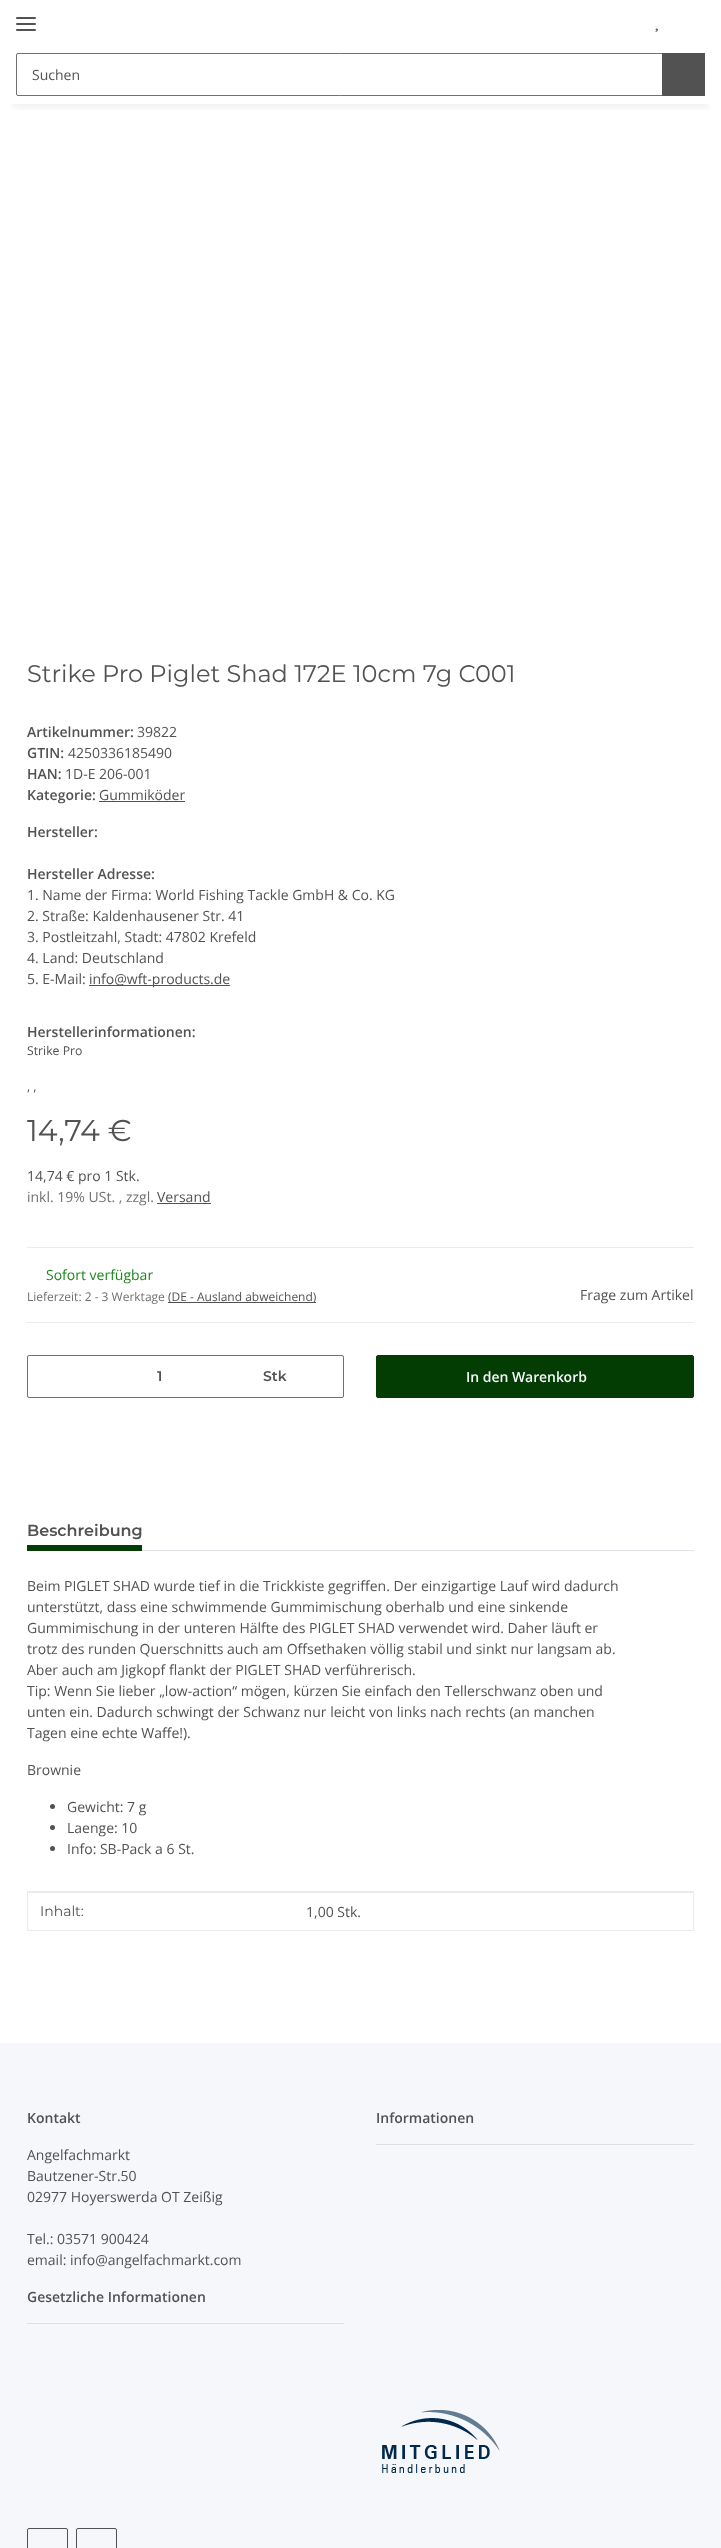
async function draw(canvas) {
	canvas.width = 721;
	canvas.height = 2548;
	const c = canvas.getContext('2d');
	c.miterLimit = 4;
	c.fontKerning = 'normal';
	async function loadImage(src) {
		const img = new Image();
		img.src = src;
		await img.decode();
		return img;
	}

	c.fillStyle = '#f5f7fa';
	c.fillRect(0, 0, 721, 2548);
	c.fillStyle = '#fff';
	c.fillRect(0, 0, 721, 2043);
	c.save();
	c.beginPath();
	c.rect(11, 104, 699, 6);
	c.clip();
	c.fillStyle = '#0000000f';
	c.filter = 'blur(4.5px)';
	c.beginPath();
	c.rect(12, 28, 697, 80);
	c.fill();
	c.filter = 'none';
	c.restore();
	c.fillStyle = '#525252';
	c.beginPath();
	c.roundRect(16, 23, 20, 2, 1);
	c.fill();
	c.beginPath();
	c.roundRect(16, 17, 20, 2, 1);
	c.fill();
	c.beginPath();
	c.roundRect(16, 29, 20, 2, 1);
	c.fill();
	c.drawImage(await loadImage('img1.png'), 655, 28, 3, 4);
	c.beginPath();
	c.roundRect(16.5, 53.5, 646, 42, [1.5, 0, 0, 1.5]);
	c.strokeStyle = '#707070';
	c.stroke();
	c.font = '14px Open Sans';
	c.fillText('Suchen', 32, 80);
	c.fillRect(662, 53, 43, 43);
	c.font = '24px Montserrat';
	c.fillText('Strike Pro Piglet Shad 172E 10cm 7g C001', 27, 682);
	c.font = '600 14px Open Sans';
	c.fillText('Artikelnummer:', 27, 737);
	c.font = '14px Open Sans';
	c.fillText('39822', 137, 737);
	c.font = '600 14px Open Sans';
	c.fillText('GTIN:', 27, 758);
	c.font = '14px Open Sans';
	c.fillText('4250336185490', 68, 758);
	c.font = '600 14px Open Sans';
	c.fillText('HAN:', 27, 779);
	c.font = '14px Open Sans';
	c.fillText('1D-E 206-001', 65, 779);
	c.font = '600 14px Open Sans';
	c.fillText('Kategorie:', 27, 800);
	c.font = '14px Open Sans';
	c.fillText('Gummiköder', 99, 800);
	c.fillRect(99, 801, 86, 1);
	c.font = '600 14px Open Sans';
	c.fillText('Hersteller:', 27, 837);
	c.fillText('Hersteller Adresse:', 27, 879);
	c.font = '14px Open Sans';
	for (const [text, x, y] of [
		['1. Name der Firma: World Fishing Tackle GmbH & Co. KG', 27, 900],
		['2. Straße: Kaldenhausener Str. 41', 27, 921],
		['3. Postleitzahl, Stadt: 47802 Krefeld', 27, 942],
		['4. Land: Deutschland', 27, 963],
		['5. E-Mail:', 27, 984],
	]) {
		c.fillText(text, x, y);
	}
	c.fillRect(89, 985, 141, 1);
	c.fillText('info@wft-products.de', 89, 984);
	c.font = '600 14px Open Sans';
	c.fillText('Herstellerinformationen:', 27, 1037);
	c.font = '12.25px Open Sans';
	c.fillText('Strike Pro', 27, 1055);
	c.fillText(', ,', 27, 1091);
	c.font = '30px Montserrat';
	c.fillText('14,74 €', 27, 1141);
	c.font = '14px Open Sans';
	c.fillText('14,74 € pro 1 Stk.', 27, 1181);
	c.fillStyle = '#707070';
	c.fillText('inkl. 19% USt. , zzgl.', 27, 1202);
	c.fillStyle = '#525252';
	c.fillText('Versand', 157, 1202);
	for (const [x, y, w, h, color] of [
		[157, 1203, 54, 1, '#525252'],
		[27, 1247, 667, 1, '#ebebeb'],
		[27, 1322, 667, 1, '#ebebeb'],
	]) {
		c.fillStyle = color;
		c.fillRect(x, y, w, h);
	}
	c.fillStyle = '#1c871e';
	c.fillText('Sofort verfügbar', 46, 1280);
	c.font = '12px Open Sans';
	c.fillStyle = '#707070';
	c.fillText('Lieferzeit: 2 - 3 Werktage', 27, 1301);
	c.fillStyle = '#525252';
	c.fillRect(168, 1302, 148, 1);
	c.fillText('(DE - Ausland abweichend)', 168, 1301);
	c.font = '14px Open Sans';
	c.fillText('Frage zum Artikel', 580, 1300);
	c.beginPath();
	c.roundRect(27.5, 1355.5, 316, 42, 1.5);
	c.stroke();
	c.font = '600 14px Montserrat';
	c.fillText('1', 157, 1381);
	c.fillText('Stk', 263, 1381);
	c.fillStyle = '#043d03';
	c.beginPath();
	c.roundRect(376.5, 1355.5, 317, 42, 1.5);
	c.fill();
	c.strokeStyle = '#043d03';
	c.stroke();
	c.font = '600 14px Open Sans';
	c.fillStyle = '#f5f7fa';
	c.fillText('In den Warenkorb', 466, 1382);
	c.fillStyle = '#dee2e6';
	c.fillRect(142, 1550, 552, 1);
	c.font = '600 16px Montserrat';
	c.fillStyle = '#525252';
	c.fillText('Beschreibung', 27, 1536);
	c.fillStyle = '#043d03';
	c.fillRect(27, 1545, 115, 6);
	c.font = '14px Open Sans';
	c.fillStyle = '#525252';
	for (const [text, x, y] of [
		['Beim PIGLET SHAD wurde tief in die Trickkiste gegriffen. Der einzigartige Lauf wird dadurch', 27, 1591],
		['unterstützt, dass eine schwimmende Gummimischung oberhalb und eine sinkende', 27, 1612],
		['Gummimischung in der unteren Hälfte des PIGLET SHAD verwendet wird. Daher läuft er', 27, 1633],
		['trotz des runden Querschnitts auch am Offsethaken völlig stabil und sinkt nur langsam ab.', 27, 1654],
		['Aber auch am Jigkopf flankt der PIGLET SHAD verführerisch.', 27, 1675],
		['Tip: Wenn Sie lieber „low-action“ mögen, kürzen Sie einfach den Tellerschwanz oben und', 27, 1696],
		['unten ein. Dadurch schwingt der Schwanz nur leicht von links nach rechts (an manchen', 27, 1717],
		['Tagen eine echte Waffe!).', 27, 1738],
		['Brownie', 27, 1775],
	]) {
		c.fillText(text, x, y);
	}
	c.beginPath();
	c.arc(52.5, 1806.5, 2.5, 0, 2 * Math.PI);
	c.fill();
	c.fillText('Gewicht: 7 g', 67, 1812);
	c.beginPath();
	c.arc(52.5, 1827.5, 2.5, 0, 2 * Math.PI);
	c.fill();
	c.fillText('Laenge: 10', 67, 1833);
	c.beginPath();
	c.arc(52.5, 1848.5, 2.5, 0, 2 * Math.PI);
	c.fill();
	c.fillText('Info: SB-Pack a 6 St.', 67, 1854);
	for (const [x, y, w, h, color] of [
		[27, 1891, 667, 2, '#ebebeb'],
		[693, 1892, 1, 39, '#ebebeb'],
		[27, 1930, 667, 1, '#ebebeb'],
		[27, 1892, 1, 39, '#ebebeb'],
	]) {
		c.fillStyle = color;
		c.fillRect(x, y, w, h);
	}
	c.font = '14px Montserrat';
	c.fillStyle = '#525252';
	c.fillText('Inhalt:', 40, 1916);
	c.font = '14px Open Sans';
	c.fillText('1,00 Stk.', 306, 1917);
	c.font = '600 14px Open Sans';
	c.fillText('Kontakt', 27, 2123);
	c.font = '14px Open Sans';
	for (const [text, x, y] of [
		['Angelfachmarkt', 27, 2160],
		['Bautzener-Str.50', 27, 2181],
		['02977 Hoyerswerda OT Zeißig', 27, 2202],
		['Tel.: 03571 900424', 27, 2244],
		['email: info@angelfachmarkt.com', 27, 2265],
	]) {
		c.fillText(text, x, y);
	}
	c.font = '600 14px Open Sans';
	c.fillText('Informationen', 376, 2123);
	c.fillStyle = '#dddee1';
	c.fillRect(376, 2144, 318, 1);
	c.fillStyle = '#525252';
	c.fillText('Gesetzliche Informationen', 27, 2302);
	c.fillStyle = '#dddee1';
	c.fillRect(27, 2323, 317, 1);
	c.drawImage(await loadImage('img2.png'), 382, 2410, 118, 63);
	c.beginPath();
	c.roundRect(27.5, 2528.5, 40, 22, 1.5);
	c.strokeStyle = '#525252';
	c.stroke();
	c.beginPath();
	c.roundRect(76.5, 2528.5, 40, 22, 1.5);
	c.stroke();
}

draw(document.querySelector('canvas'));
